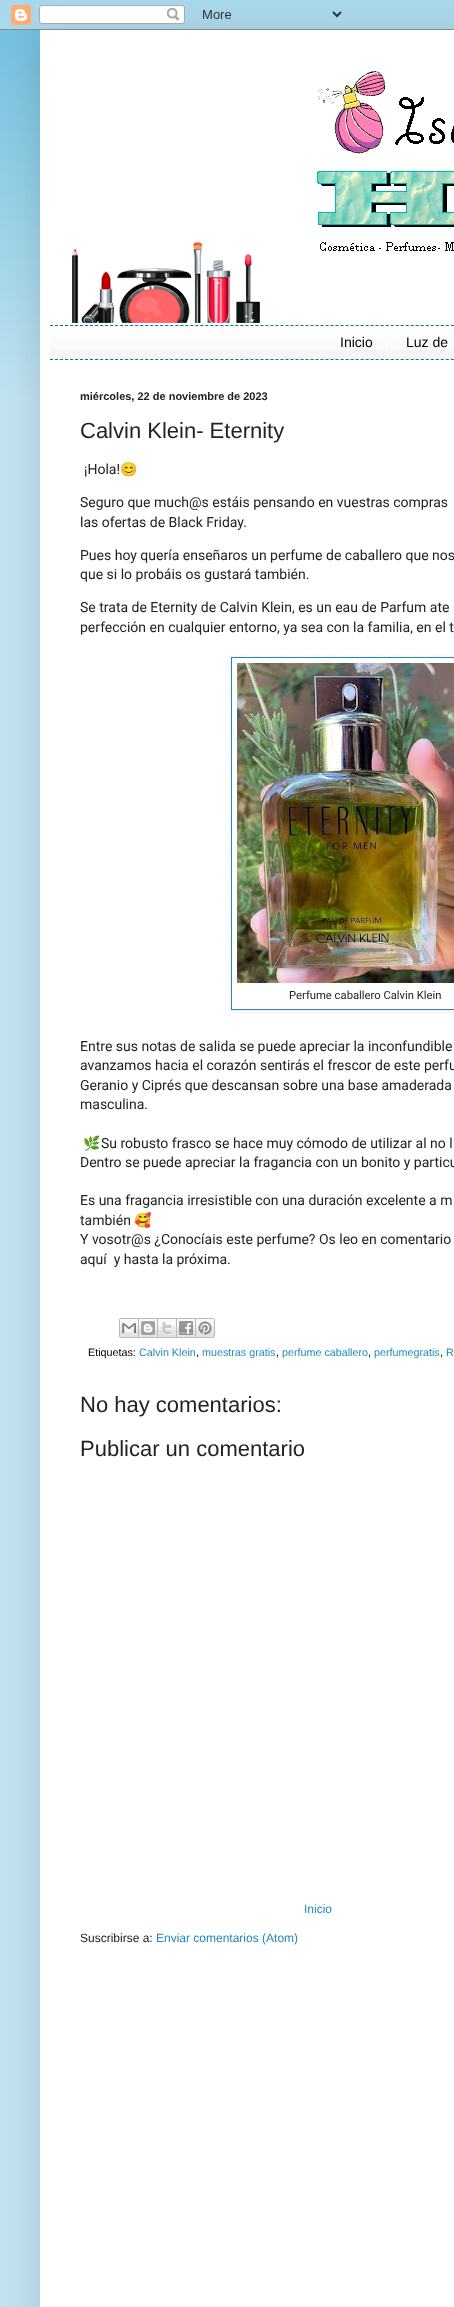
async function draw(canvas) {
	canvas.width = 454;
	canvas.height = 2307;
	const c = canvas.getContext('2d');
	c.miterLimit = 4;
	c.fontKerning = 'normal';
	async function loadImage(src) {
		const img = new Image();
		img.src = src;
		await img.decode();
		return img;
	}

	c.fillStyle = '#c2e4f2';
	c.fillRect(0, 0, 454, 2307);
	c.fillStyle = '#6bd';
	c.fillRect(0, 0, 454, 400);
	c.drawImage(await loadImage('img1.png'), 0, 0, 454, 400);
	c.fillStyle = '#00000026';
	c.filter = 'blur(20px)';
	c.beginPath();
	c.rect(40, 30, 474, 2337);
	c.fill();
	c.filter = 'none';
	c.drawImage(await loadImage('img2.png'), 0, 0, 454, 30);
	c.fillStyle = '#fff';
	c.fillRect(40, 30, 414, 2277);
	c.drawImage(await loadImage('img3.png'), 72, 71, 382, 252);
	c.fillStyle = '#f5f5f5';
	c.fillRect(50, 325, 404, 35);
	c.drawImage(await loadImage('img4.png'), 50, 326, 404, 24);
	c.beginPath();
	c.moveTo(50, 325.5);
	c.lineTo(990, 325.5);
	c.strokeStyle = '#0872a0';
	c.setLineDash([3, 2.01]);
	c.stroke();
	c.beginPath();
	c.moveTo(50, 359.5);
	c.lineTo(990, 359.5);
	c.stroke();
	c.fillStyle = '#fff';
	c.fillRect(387, 337, 1, 22);
	c.font = '14px Liberation Sans';
	c.fillStyle = '#000';
	c.fillText('Inicio', 340, 347);
	c.fillStyle = '#fff';
	c.fillRect(391, 337, 1, 22);
	c.fillStyle = '#000';
	c.fillText('Luz de', 406, 347);
	c.font = 'bold 11px Liberation Sans';
	c.fillStyle = '#222';
	c.fillText('miércoles, 22 de noviembre de 2023', 80, 400);
	c.font = '22px Liberation Sans';
	c.fillText('Calvin Klein- Eternity', 80, 438);
	c.font = '14px Roboto';
	c.fillText('¡Hola!', 84, 474);
	c.font = '14px Noto Color Emoji';
	c.fillText('😊', 120, 474);
	c.font = '14px Roboto';
	for (const [text, x, y] of [
		['Seguro que much@s estáis pensando en vuestras compras', 80, 507],
		['las ofertas de Black Friday.', 80, 527],
		['Pues hoy quería enseñaros un perfume de caballero que nos', 80, 560],
		['que si lo probáis os gustará también.', 80, 579],
		['Se trata de Eternity de Calvin Klein, es un eau de Parfum ate', 80, 612],
		['perfección en cualquier entorno, ya sea con la familia, en el t', 80, 632],
	]) {
		c.fillText(text, x, y);
	}
	c.save();
	c.beginPath();
	c.moveTo(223, 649);
	c.lineTo(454, 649);
	c.lineTo(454, 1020);
	c.lineTo(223, 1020);
	c.closePath();
	c.moveTo(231, 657);
	c.lineTo(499, 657);
	c.lineTo(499, 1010);
	c.lineTo(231, 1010);
	c.closePath();
	c.clip('evenodd');
	c.fillStyle = '#0000001a';
	c.filter = 'blur(2.5px)';
	c.beginPath();
	c.rect(232, 658, 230, 353);
	c.fill();
	c.filter = 'none';
	c.restore();
	c.strokeStyle = '#28b';
	c.setLineDash([]);
	c.strokeRect(231.5, 657.5, 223, 352);
	c.drawImage(await loadImage('img5.png'), 237, 663, 217, 320);
	c.font = '11.25px Roboto';
	c.fillText('Perfume caballero Calvin Klein', 289, 999);
	c.font = '14px Roboto';
	for (const [text, x, y] of [
		['Entre sus notas de salida se puede apreciar la inconfundible', 80, 1051],
		['avanzamos hacia el corazón sentirás el frescor de este perfu', 80, 1070],
		['Geranio y Ciprés que descansan sobre una base amaderada', 80, 1090],
		['masculina.', 80, 1109],
	]) {
		c.fillText(text, x, y);
	}
	c.font = '14px Noto Color Emoji';
	c.fillText('🌿', 83, 1148);
	c.font = '14px Roboto';
	for (const [text, x, y] of [
		['Su robusto frasco se hace muy cómodo de utilizar al no l', 101, 1148],
		['Dentro se puede apreciar la fragancia con un bonito y particu', 80, 1167],
		['Es una fragancia irresistible con una duración excelente a m', 80, 1205],
		['también', 80, 1225],
	]) {
		c.fillText(text, x, y);
	}
	c.font = '14px Noto Color Emoji';
	c.fillText('🥰', 134, 1225);
	c.font = '14px Roboto';
	c.fillText('Y vosotr@s ¿Conocíais este perfume? Os leo en comentario', 80, 1244);
	c.fillText('aquí  y hasta la próxima.', 80, 1264);
	c.drawImage(await loadImage('img6.png'), 119, 1318, 20, 20);
	c.drawImage(await loadImage('img7.png'), 139, 1318, 19, 20);
	c.drawImage(await loadImage('img8.png'), 158, 1318, 19, 20);
	c.drawImage(await loadImage('img9.png'), 177, 1318, 19, 20);
	c.drawImage(await loadImage('img10.png'), 196, 1318, 19, 20);
	c.font = '10.75px Liberation Sans';
	c.fillStyle = '#000';
	c.fillText('Etiquetas:', 88, 1356);
	c.fillStyle = '#28b';
	c.fillText('Calvin Klein', 139, 1356);
	c.fillStyle = '#000';
	c.fillText(',', 196, 1356);
	c.fillStyle = '#28b';
	c.fillText('muestras gratis', 202, 1356);
	c.fillStyle = '#000';
	c.fillText(',', 276, 1356);
	c.fillStyle = '#28b';
	c.fillText('perfume caballero', 282, 1356);
	c.fillStyle = '#000';
	c.fillText(',', 368, 1356);
	c.fillStyle = '#28b';
	c.fillText('perfumegratis', 374, 1356);
	c.fillStyle = '#000';
	c.fillText(',', 440, 1356);
	c.fillStyle = '#28b';
	c.fillText('R', 446, 1356);
	c.font = '22px Liberation Sans';
	c.fillStyle = '#222';
	c.fillText('No hay comentarios:', 80, 1412);
	c.fillText('Publicar un comentario', 80, 1456);
	c.font = '12px Liberation Sans';
	c.fillStyle = '#28b';
	c.fillText('Inicio', 304, 1913);
	c.fillStyle = '#222';
	c.fillText('Suscribirse a:', 80, 1942);
	c.fillStyle = '#28b';
	c.fillText('Enviar comentarios (Atom)', 156, 1942);
}

draw(document.querySelector('canvas'));
